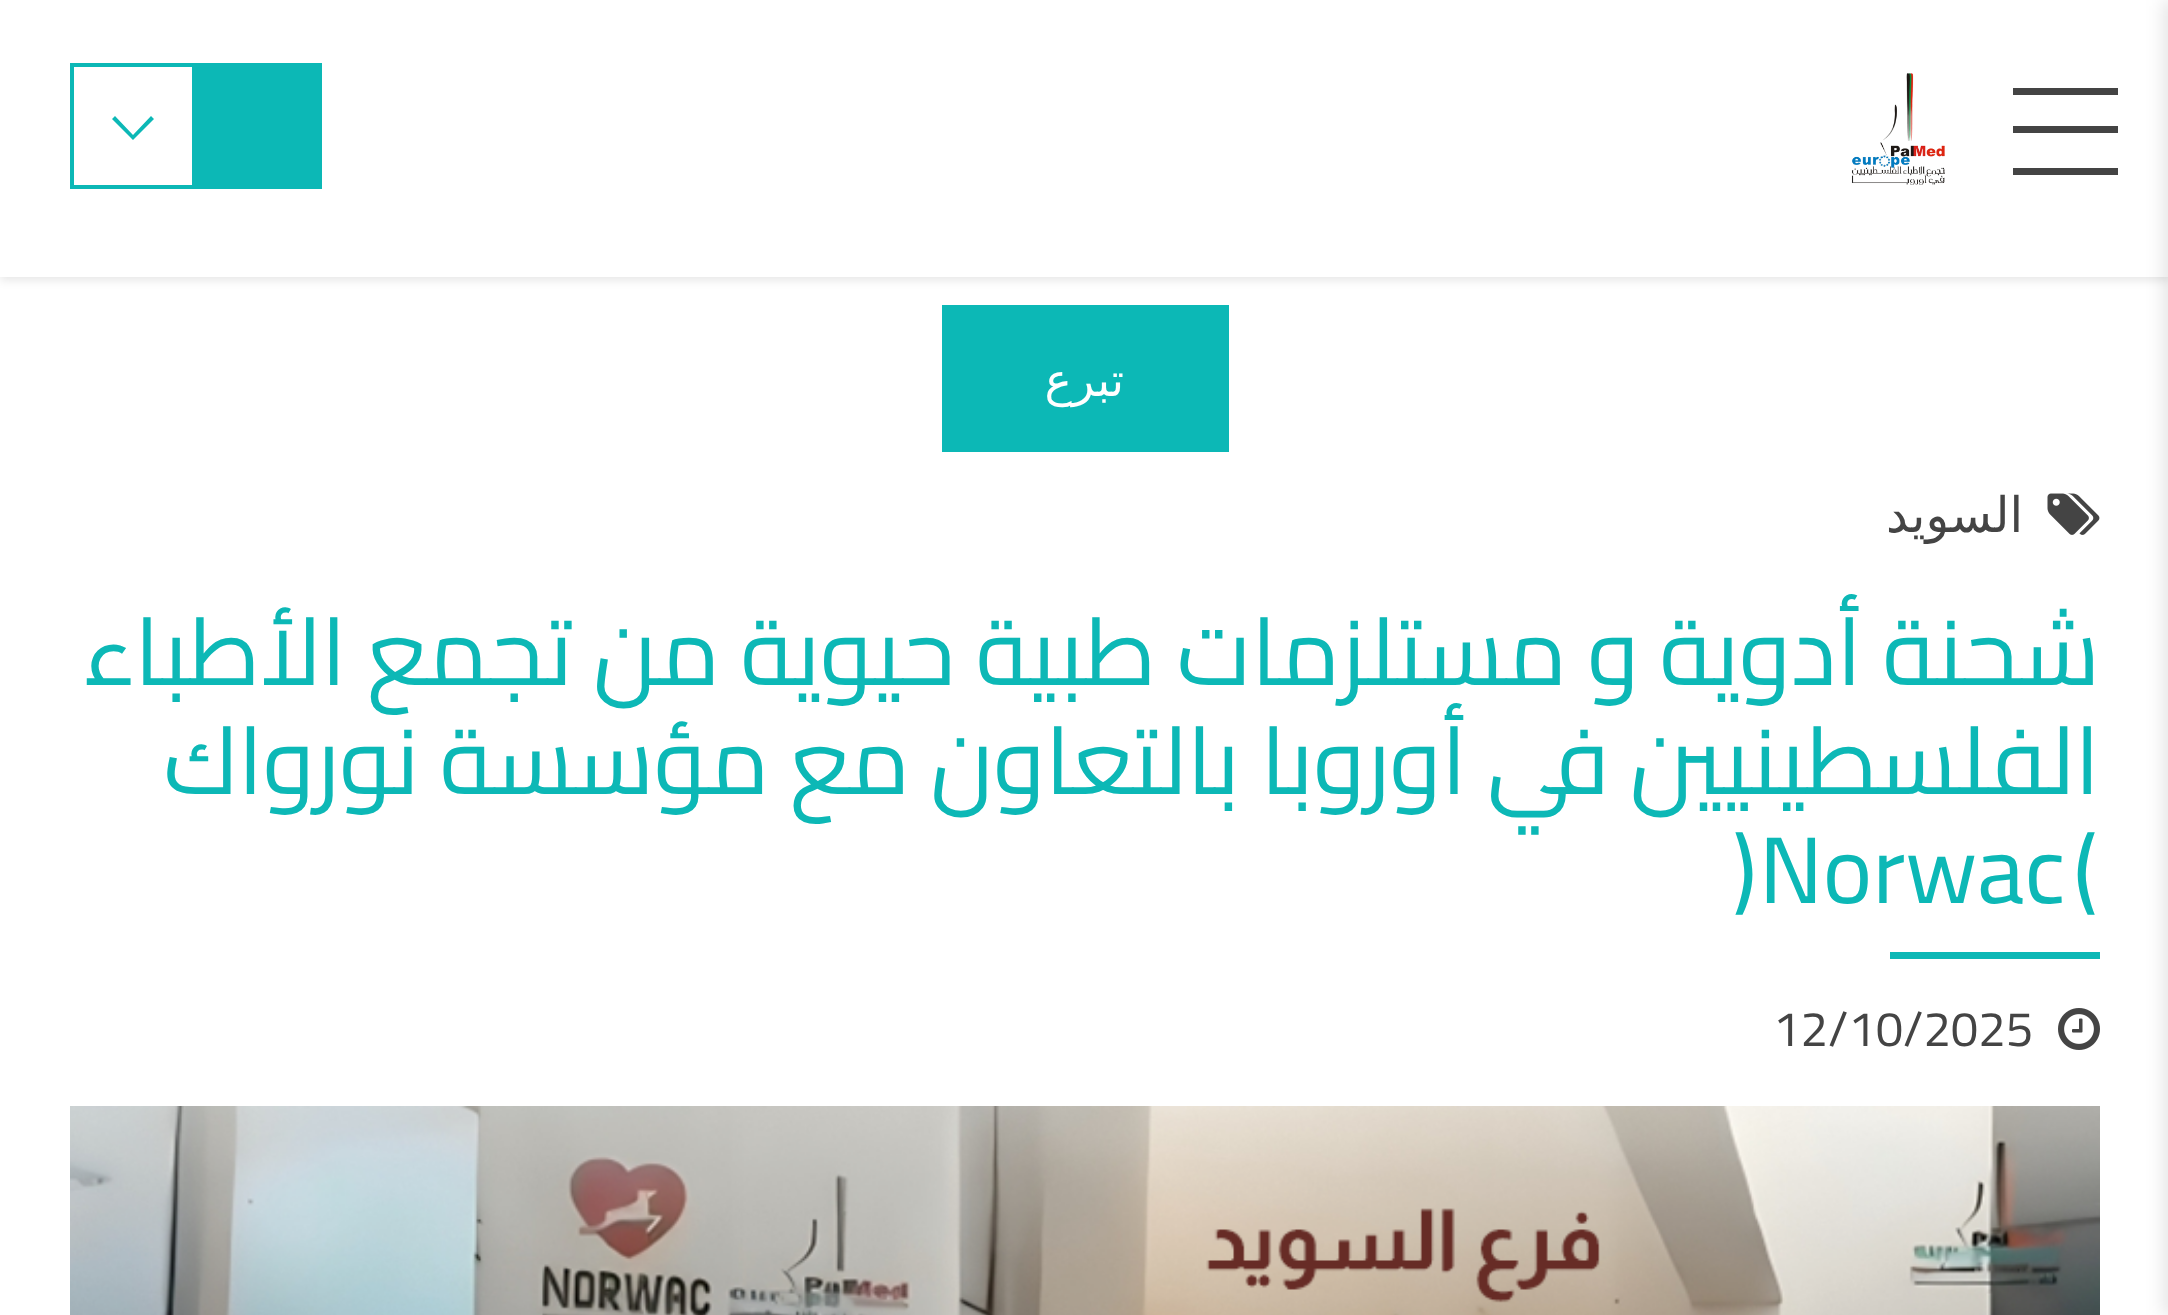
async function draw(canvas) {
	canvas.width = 2168;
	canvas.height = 1315;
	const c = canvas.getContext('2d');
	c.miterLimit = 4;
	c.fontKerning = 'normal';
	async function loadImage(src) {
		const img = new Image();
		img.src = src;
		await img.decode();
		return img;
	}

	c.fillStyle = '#fff';
	c.fillRect(0, 0, 2168, 1315);
	c.fillStyle = '#0000001a';
	c.filter = 'blur(9px)';
	c.beginPath();
	c.rect(2163, 0, 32, 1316);
	c.fill();
	c.filter = 'none';
	c.save();
	c.beginPath();
	c.moveTo(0, 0);
	c.lineTo(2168, 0);
	c.lineTo(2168, 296);
	c.lineTo(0, 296);
	c.closePath();
	c.moveTo(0, 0);
	c.lineTo(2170, 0);
	c.lineTo(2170, 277);
	c.lineTo(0, 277);
	c.closePath();
	c.clip('evenodd');
	c.filter = 'blur(5px)';
	c.beginPath();
	c.rect(0, 4, 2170, 276);
	c.fill();
	c.filter = 'none';
	c.restore();
	for (const [x, y, w, h, color] of [
		[2013, 88, 105, 7, '#444'],
		[2013, 126, 105, 7, '#444'],
		[2013, 168, 105, 7, '#444'],
	]) {
		c.fillStyle = color;
		c.fillRect(x, y, w, h);
	}
	c.drawImage(await loadImage('img1.png'), 1851, 73, 94, 112);
	c.fillStyle = '#0cb8b6';
	c.fillRect(196, 63, 126, 126);
	c.strokeStyle = '#0cb8b6';
	c.lineWidth = 4;
	c.strokeRect(72, 65, 122, 122);
	c.beginPath();
	c.moveTo(130, 137);
	c.lineTo(133, 140);
	c.lineTo(154, 119);
	c.lineTo(151, 116);
	c.lineTo(133, 135);
	c.lineTo(115, 116);
	c.lineTo(112, 119);
	c.closePath();
	c.fill();
	c.fillRect(942, 305, 287, 147);
	c.direction = 'rtl';
	c.font = '46px DejaVu Sans';
	c.fillStyle = '#fff';
	c.fillText('تبرع', 1124, 396);
	c.drawImage(await loadImage('img2.png'), 2047, 493, 53, 42);
	c.font = '49px DejaVu Sans';
	c.fillStyle = '#444';
	c.fillText('السويد', 2023, 532);
	c.wordSpacing = '-0.25px';
	c.font = '94.5px Cairo';
	c.fillStyle = '#0cb8b6';
	c.fillText('شحنة أدوية و مستلزمات طبية حيوية من تجمع الأطباء', 2100, 685);
	c.fillText('الفلسطينيين في أوروبا بالتعاون مع مؤسسة نورواك', 2100, 794);
	c.wordSpacing = '0px';
	c.direction = 'ltr';
	for (const [text, x, y] of [
		['(', 2073, 903],
		['Norwac', 1759, 903],
		[')', 1732, 903],
	]) {
		c.fillText(text, x, y);
	}
	c.fillRect(1890, 952, 210, 7);
	c.drawImage(await loadImage('img3.png'), 2058, 1008, 42, 42);
	c.font = '49px "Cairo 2"';
	c.fillStyle = '#444';
	c.fillText('12/10/2025', 1773, 1046);
	c.drawImage(await loadImage('img4.png'), 70, 1106, 2030, 209);
}

draw(document.querySelector('canvas'));
